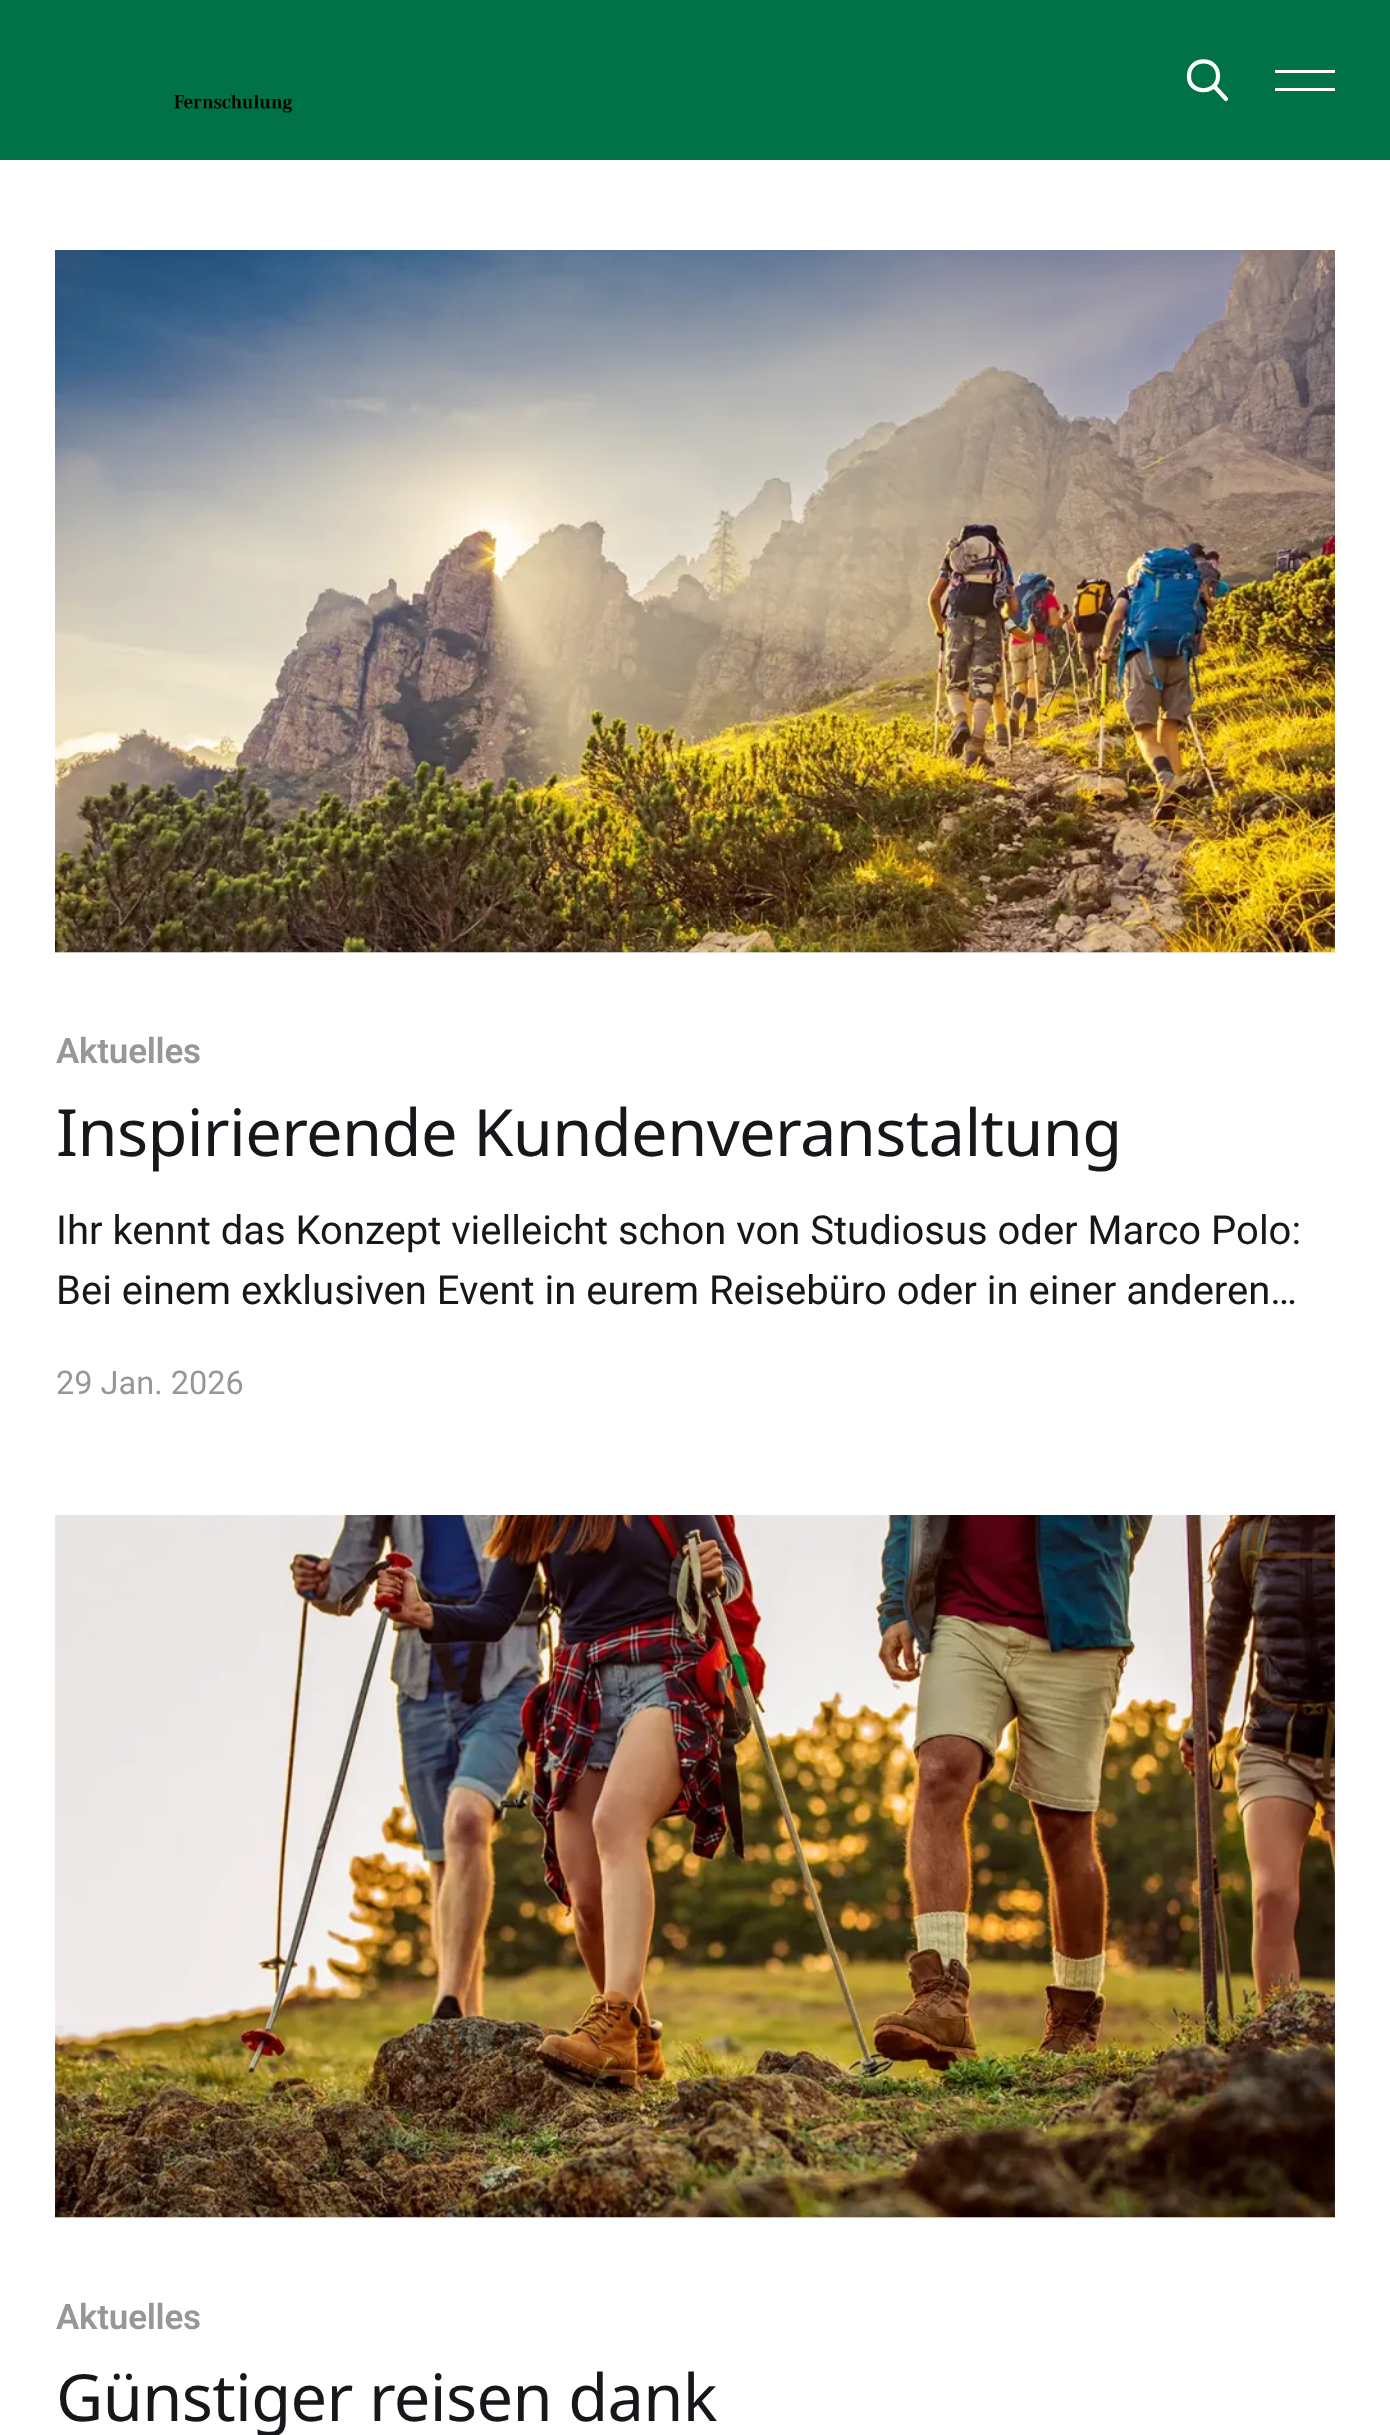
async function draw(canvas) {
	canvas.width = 1390;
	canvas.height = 2435;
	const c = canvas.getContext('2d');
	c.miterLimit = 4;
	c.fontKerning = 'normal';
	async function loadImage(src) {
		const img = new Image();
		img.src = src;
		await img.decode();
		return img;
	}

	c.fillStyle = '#fff';
	c.fillRect(0, 0, 1390, 2435);
	c.fillStyle = '#017147';
	c.fillRect(0, 0, 1390, 160);
	c.beginPath();
	c.moveTo(1226, 99);
	c.lineTo(1214, 86);
	c.moveTo(1218, 76);
	c.bezierCurveTo(1218, 95, 1188.5, 95, 1189, 76);
	c.bezierCurveTo(1189, 56.5, 1218, 56.5, 1218, 76);
	c.closePath();
	c.strokeStyle = '#fff';
	c.lineWidth = 4.2;
	c.lineCap = 'round';
	c.lineJoin = 'round';
	c.stroke();
	c.fillStyle = '#fff';
	c.fillRect(1275, 70, 60, 3);
	c.fillRect(1275, 88, 60, 3);
	c.drawImage(await loadImage('img1.png'), 174, 94, 119, 19);
	c.fillStyle = '#f1f1f1';
	c.fillRect(55, 952, 1280, 1);
	c.drawImage(await loadImage('img2.png'), 55, 250, 1280, 703);
	c.letterSpacing = '-0.25px';
	c.font = '600 35px Roboto';
	c.fillStyle = '#979797';
	c.fillText('Aktuelles', 56, 1063);
	c.letterSpacing = '-0.65px';
	c.font = '65px Noto Sans';
	c.fillStyle = '#15171a';
	c.fillText('Inspirierende Kundenveranstaltung', 56, 1156);
	c.letterSpacing = '0px';
	c.font = '40px Roboto';
	c.fillText('Ihr kennt das Konzept vielleicht schon von Studiosus oder Marco Polo:', 56, 1244);
	c.fillText('Bei einem exklusiven Event in eurem Reisebüro oder in einer anderen…', 56, 1304);
	c.font = '32.5px Roboto';
	c.fillStyle = '#979797';
	c.fillText('29 Jan. 2026', 56, 1394);
	c.fillStyle = '#f1f1f1';
	c.fillRect(55, 1515, 1280, 703);
	c.drawImage(await loadImage('img3.png'), 55, 1515, 1280, 703);
	c.letterSpacing = '-0.25px';
	c.font = '600 35px Roboto';
	c.fillStyle = '#979797';
	c.fillText('Aktuelles', 56, 2329);
	c.letterSpacing = '-0.65px';
	c.font = '65px Noto Sans';
	c.fillStyle = '#15171a';
	c.fillText('Günstiger reisen dank', 56, 2421);
}

draw(document.querySelector('canvas'));
